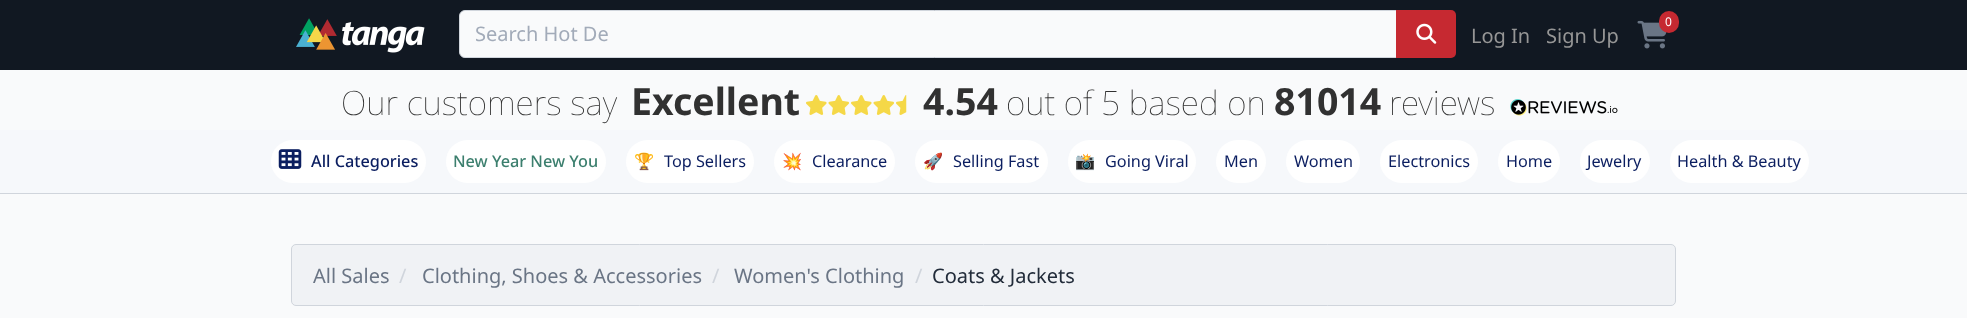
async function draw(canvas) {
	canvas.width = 1967;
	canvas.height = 318;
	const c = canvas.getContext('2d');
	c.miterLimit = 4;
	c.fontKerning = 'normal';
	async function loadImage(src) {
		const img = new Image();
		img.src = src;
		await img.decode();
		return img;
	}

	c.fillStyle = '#f9fafb';
	c.fillRect(0, 0, 1967, 318);
	c.fillStyle = '#111822';
	c.fillRect(0, 0, 1967, 70);
	c.drawImage(await loadImage('img1.png'), 296, 18, 129, 35);
	c.fillStyle = '#f9fafb';
	c.beginPath();
	c.roundRect(459.5, 10.5, 945, 47, [5.5, 0, 0, 5.5]);
	c.fill();
	c.strokeStyle = '#d0d5dc';
	c.stroke();
	c.font = '20px Noto Sans';
	c.fillStyle = '#a2abb9';
	c.fillText('Search Hot De', 475, 41);
	c.fillStyle = '#c62931';
	c.beginPath();
	c.roundRect(1396, 10, 60, 48, [0, 5, 5, 0]);
	c.fill();
	c.drawImage(await loadImage('img2.png'), 1416, 23, 21, 21);
	c.fillStyle = '#969696';
	c.fillText('Log In', 1471, 43);
	c.fillText('Sign Up', 1546, 43);
	c.drawImage(await loadImage('img3.png'), 1637, 20, 30, 29);
	c.fillStyle = '#c62931';
	c.beginPath();
	c.roundRect(1659, 11, 20, 22, 10);
	c.fill();
	c.font = '12px Noto Sans';
	c.fillStyle = '#fff';
	c.fillText('0', 1665, 26);
	c.font = '100 33.5px Noto Sans';
	c.fillStyle = '#313131';
	c.fillText('Our customers say', 341, 115);
	c.font = 'bold 37.5px Noto Sans';
	c.fillText('Excellent', 631, 115);
	c.drawImage(await loadImage('img4.png'), 806, 95, 21, 20);
	c.drawImage(await loadImage('img5.png'), 828, 95, 21, 20);
	c.drawImage(await loadImage('img4.png'), 851, 95, 21, 20);
	c.drawImage(await loadImage('img5.png'), 873, 95, 21, 20);
	c.drawImage(await loadImage('img6.png'), 896, 95, 11, 20);
	c.fillText('4.54', 923, 115);
	c.font = '100 33.5px Noto Sans';
	c.fillText('out of 5 based on', 1006, 115);
	c.font = 'bold 37.5px Noto Sans';
	c.fillText('81014', 1274, 115);
	c.font = '100 33.5px Noto Sans';
	c.fillText('reviews', 1389, 115);
	c.drawImage(await loadImage('img7.png'), 1510, 99, 108, 17);
	c.fillStyle = '#f6f8fb';
	c.fillRect(0, 130, 1967, 63);
	c.fillStyle = '#d0d5dc';
	c.fillRect(0, 193, 1967, 1);
	c.fillStyle = '#fff';
	c.beginPath();
	c.roundRect(271, 140, 155, 43, 21.5);
	c.fill();
	c.drawImage(await loadImage('img8.png'), 278, 149, 24, 20);
	c.font = '500 16.25px Noto Sans';
	c.fillStyle = '#0b1e60';
	c.fillText('All Categories', 311, 167);
	c.fillStyle = '#fff';
	c.beginPath();
	c.roundRect(446, 140, 160, 43, 21.5);
	c.fill();
	c.fillStyle = '#3c7f6e';
	c.fillText('New Year New You', 453, 167);
	c.fillStyle = '#fff';
	c.beginPath();
	c.roundRect(626, 140, 128, 43, 21.5);
	c.fill();
	c.font = 'bold 16.25px Noto Color Emoji';
	c.fillStyle = '#0b1e60';
	c.fillText('🏆', 634, 167);
	c.font = '16.25px Noto Sans';
	c.fillText('Top Sellers', 664, 167);
	c.fillStyle = '#fff';
	c.beginPath();
	c.roundRect(774, 140, 121, 43, 21.5);
	c.fill();
	c.font = 'bold 16.25px Noto Color Emoji';
	c.fillStyle = '#0b1e60';
	c.fillText('💥', 782, 167);
	c.font = '16.25px Noto Sans';
	c.fillText('Clearance', 812, 167);
	c.fillStyle = '#fff';
	c.beginPath();
	c.roundRect(915, 140, 133, 43, 21.5);
	c.fill();
	c.font = 'bold 16.25px Noto Color Emoji';
	c.fillStyle = '#0b1e60';
	c.fillText('🚀', 923, 167);
	c.font = '16.25px Noto Sans';
	c.fillText('Selling Fast', 953, 167);
	c.fillStyle = '#fff';
	c.beginPath();
	c.roundRect(1068, 140, 128, 43, 21.5);
	c.fill();
	c.font = 'bold 16.25px Noto Color Emoji';
	c.fillStyle = '#0b1e60';
	c.fillText('📸', 1075, 167);
	c.font = '16.25px Noto Sans';
	c.fillText('Going Viral', 1105, 167);
	c.fillStyle = '#fff';
	c.beginPath();
	c.roundRect(1216, 140, 50, 43, 21.5);
	c.fill();
	c.fillStyle = '#0b1e60';
	c.fillText('Men', 1224, 167);
	c.fillStyle = '#fff';
	c.beginPath();
	c.roundRect(1286, 140, 74, 43, 21.5);
	c.fill();
	c.fillStyle = '#0b1e60';
	c.fillText('Women', 1294, 167);
	c.fillStyle = '#fff';
	c.beginPath();
	c.roundRect(1380, 140, 98, 43, 21.5);
	c.fill();
	c.fillStyle = '#0b1e60';
	c.fillText('Electronics', 1388, 167);
	c.fillStyle = '#fff';
	c.beginPath();
	c.roundRect(1498, 140, 62, 43, 21.5);
	c.fill();
	c.fillStyle = '#0b1e60';
	c.fillText('Home', 1506, 167);
	c.fillStyle = '#fff';
	c.beginPath();
	c.roundRect(1580, 140, 70, 43, 21.5);
	c.fill();
	c.fillStyle = '#0b1e60';
	c.fillText('Jewelry', 1587, 167);
	c.fillStyle = '#fff';
	c.beginPath();
	c.roundRect(1670, 140, 139, 43, 21.5);
	c.fill();
	c.fillStyle = '#0b1e60';
	c.fillText('Health & Beauty', 1677, 167);
	c.fillStyle = '#f0f2f5';
	c.beginPath();
	c.roundRect(291.5, 244.5, 1384, 61, 4.5);
	c.fill();
	c.stroke();
	c.font = '20px Noto Sans';
	c.fillStyle = '#6a7585';
	c.fillText('All Sales', 313, 283);
	c.fillStyle = '#d0d5dc';
	c.fillText('/', 399, 283);
	c.fillStyle = '#6a7585';
	c.fillText('Clothing, Shoes & Accessories', 422, 283);
	c.fillStyle = '#d0d5dc';
	c.fillText('/', 712, 283);
	c.fillStyle = '#6a7585';
	c.fillText('Women\'s Clothing', 734, 283);
	c.fillStyle = '#d0d5dc';
	c.fillText('/', 915, 283);
	c.fillStyle = '#222c3a';
	c.fillText('Coats & Jackets', 932, 283);
}

draw(document.querySelector('canvas'));
